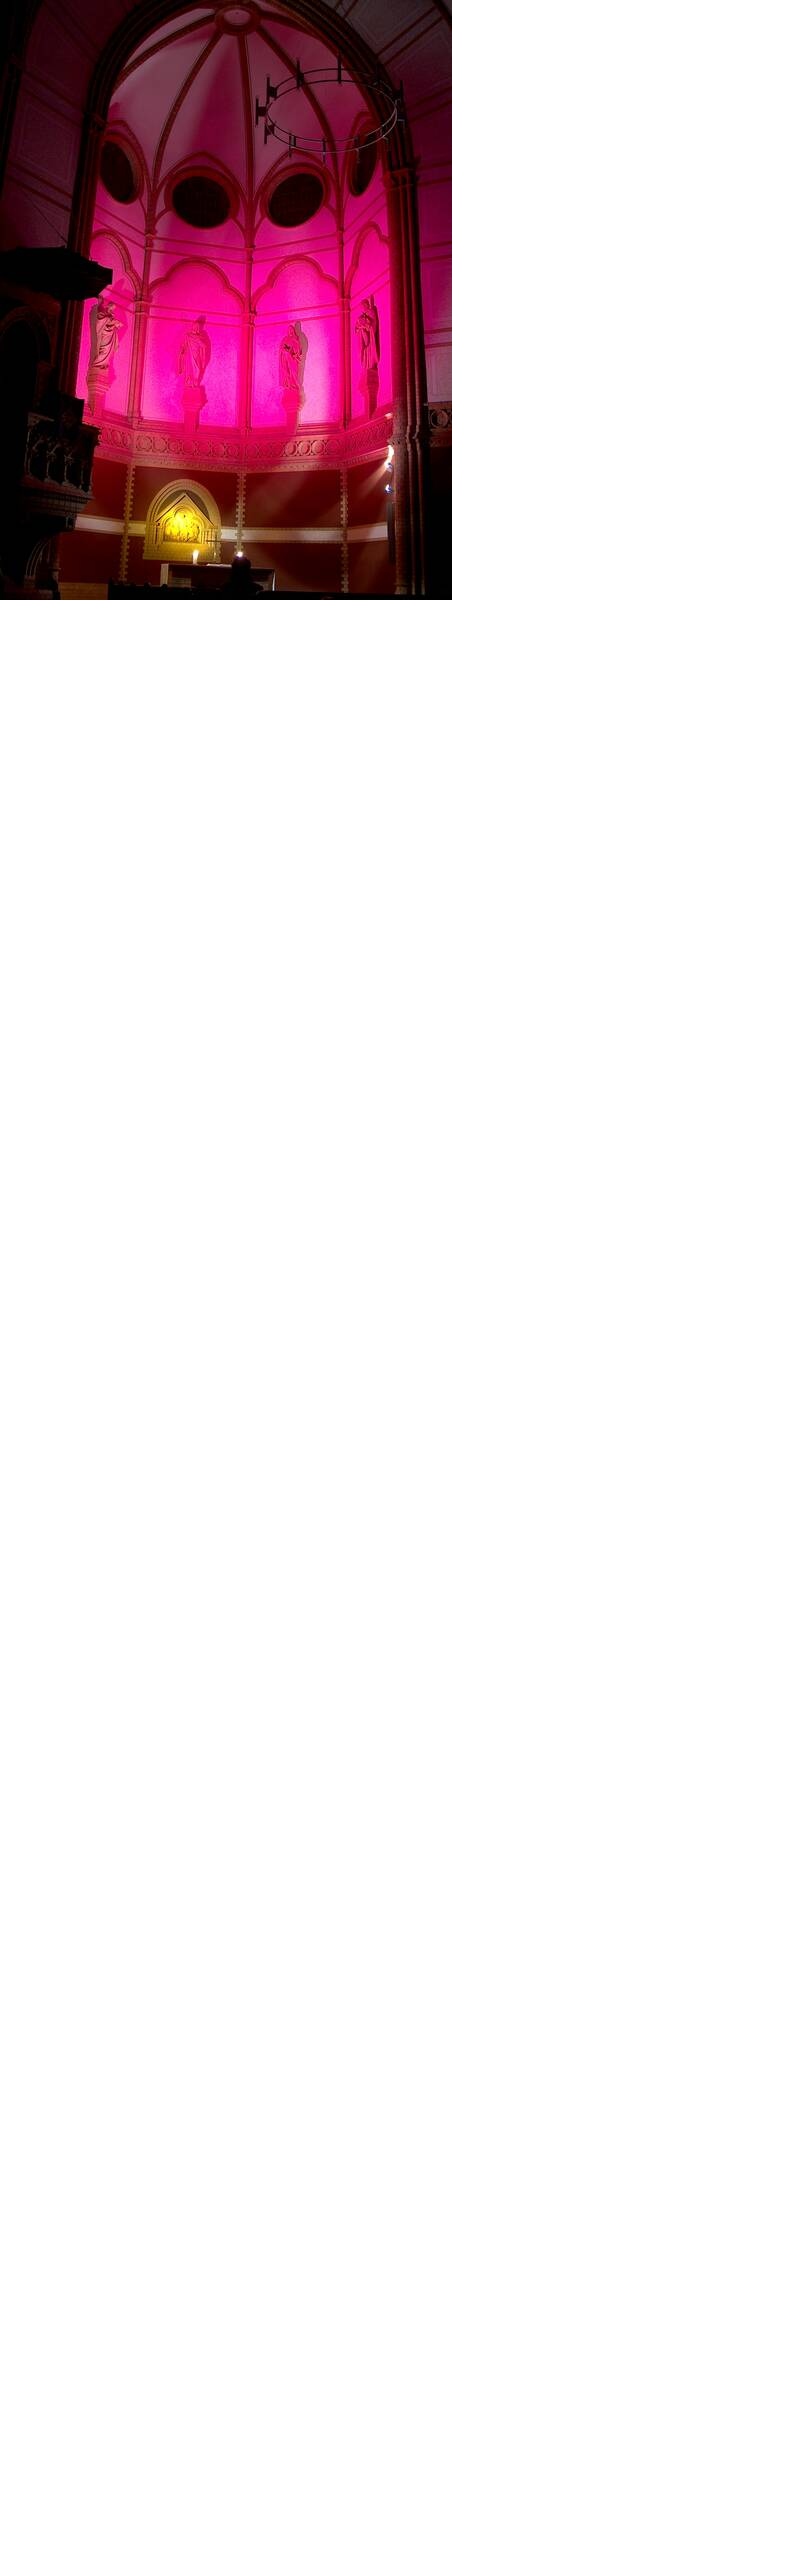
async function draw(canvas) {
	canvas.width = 809;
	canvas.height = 2553;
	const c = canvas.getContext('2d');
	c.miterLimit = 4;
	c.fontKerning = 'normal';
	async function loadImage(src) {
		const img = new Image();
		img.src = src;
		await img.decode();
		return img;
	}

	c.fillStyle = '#fff';
	c.fillRect(0, 0, 809, 2553);
	c.drawImage(await loadImage('img1.png'), 0, 0, 452, 600);
}

draw(document.querySelector('canvas'));
